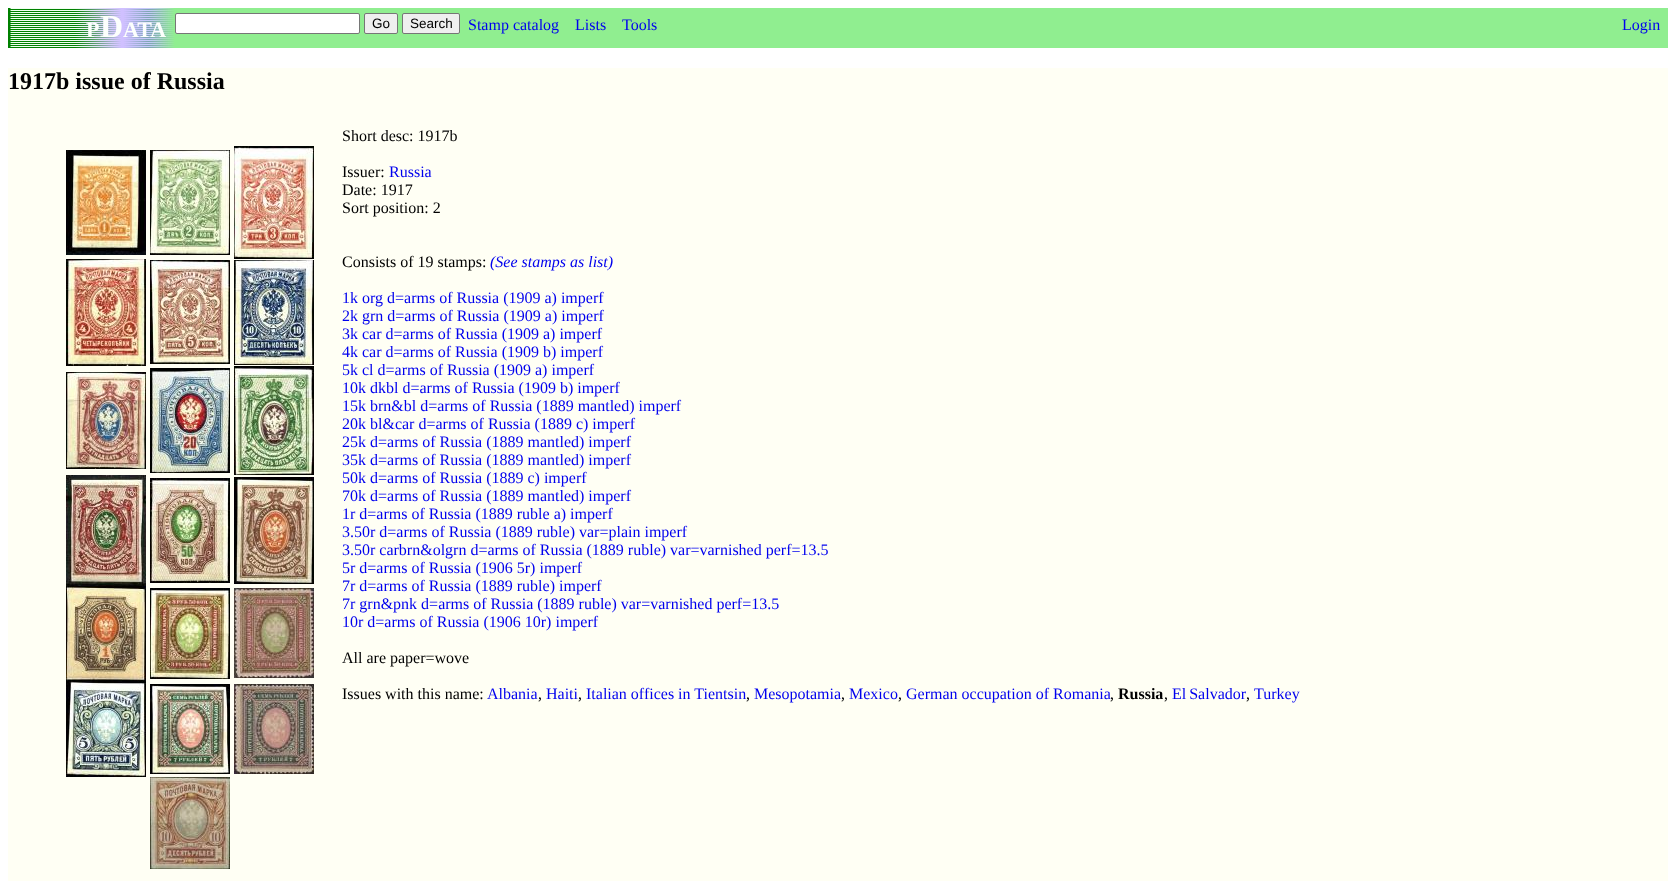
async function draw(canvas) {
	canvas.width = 1676;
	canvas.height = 881;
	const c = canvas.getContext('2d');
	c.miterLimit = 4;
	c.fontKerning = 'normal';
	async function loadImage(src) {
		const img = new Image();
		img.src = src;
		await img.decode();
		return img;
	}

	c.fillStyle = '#fff';
	c.fillRect(0, 0, 1676, 881);
	c.fillStyle = '#90ee90';
	c.fillRect(175, 8, 1493, 40);
	c.drawImage(await loadImage('img1.png'), 8, 8, 167, 40);
	c.font = 'bold 22px Liberation Serif';
	c.fillStyle = '#fcfffc';
	c.fillText('P', 86, 37);
	c.font = 'bold 32px Liberation Serif';
	c.fillText('D', 100, 37);
	c.font = 'bold 22px Liberation Serif';
	c.fillText('ATA', 123, 37);
	c.fillStyle = '#fff';
	c.beginPath();
	c.roundRect(175.5, 13.5, 184, 20, 1.5);
	c.fill();
	c.strokeStyle = '#767676';
	c.stroke();
	c.fillStyle = '#efefef';
	c.beginPath();
	c.roundRect(364.5, 13.5, 33, 20, 1.5);
	c.fill();
	c.stroke();
	c.font = '13.5px Liberation Sans';
	c.fillStyle = '#000';
	c.fillText('Go', 372, 28);
	c.fillStyle = '#efefef';
	c.beginPath();
	c.roundRect(402.5, 13.5, 57, 20, 1.5);
	c.fill();
	c.stroke();
	c.fillStyle = '#000';
	c.fillText('Search', 410, 28);
	c.font = '16px Liberation Serif';
	c.fillStyle = '#00e';
	for (const [text, x, y] of [
		['Stamp catalog', 468, 30],
		['Lists', 575, 30],
		['Tools', 622, 30],
		['Login', 1622, 30],
	]) {
		c.fillText(text, x, y);
	}
	c.fillStyle = '#fffff4';
	c.fillRect(8, 68, 1660, 813);
	c.font = 'bold 24px Liberation Serif';
	c.fillStyle = '#000';
	c.fillText('1917b issue of Russia', 8, 89);
	c.drawImage(await loadImage('img2.png'), 66, 150, 80, 105);
	c.drawImage(await loadImage('img3.png'), 150, 150, 80, 105);
	c.drawImage(await loadImage('img4.png'), 234, 146, 80, 113);
	c.drawImage(await loadImage('img5.png'), 66, 259, 80, 107);
	c.drawImage(await loadImage('img6.png'), 150, 260, 80, 104);
	c.drawImage(await loadImage('img7.png'), 234, 260, 80, 105);
	c.drawImage(await loadImage('img8.png'), 66, 372, 80, 97);
	c.drawImage(await loadImage('img9.png'), 150, 368, 80, 105);
	c.drawImage(await loadImage('img10.png'), 234, 366, 80, 109);
	c.drawImage(await loadImage('img11.png'), 66, 475, 80, 111);
	c.drawImage(await loadImage('img12.png'), 150, 478, 80, 105);
	c.drawImage(await loadImage('img13.png'), 234, 477, 80, 107);
	c.drawImage(await loadImage('img14.png'), 66, 586, 80, 95);
	c.drawImage(await loadImage('img15.png'), 150, 588, 80, 91);
	c.drawImage(await loadImage('img16.png'), 234, 588, 80, 90);
	c.drawImage(await loadImage('img17.png'), 66, 681, 80, 96);
	c.drawImage(await loadImage('img18.png'), 150, 684, 80, 90);
	c.drawImage(await loadImage('img19.png'), 234, 684, 80, 90);
	c.drawImage(await loadImage('img20.png'), 150, 777, 80, 92);
	c.font = '16px Liberation Serif';
	c.fillText('Short desc: 1917b', 342, 141);
	c.fillText('Issuer:', 342, 177);
	c.fillStyle = '#00e';
	c.fillText('Russia', 389, 177);
	c.fillStyle = '#000';
	for (const [text, x, y] of [
		['Date: 1917', 342, 195],
		['Sort position: 2', 342, 213],
		['Consists of 19 stamps:', 342, 267],
	]) {
		c.fillText(text, x, y);
	}
	c.font = 'italic 16px Liberation Serif';
	c.fillStyle = '#00e';
	c.fillText('(See stamps as list)', 490, 267);
	c.font = '16px Liberation Serif';
	for (const [text, x, y] of [
		['1k org d=arms of Russia (1909 a) imperf', 342, 303],
		['2k grn d=arms of Russia (1909 a) imperf', 342, 321],
		['3k car d=arms of Russia (1909 a) imperf', 342, 339],
		['4k car d=arms of Russia (1909 b) imperf', 342, 357],
		['5k cl d=arms of Russia (1909 a) imperf', 342, 375],
		['10k dkbl d=arms of Russia (1909 b) imperf', 342, 393],
		['15k brn&bl d=arms of Russia (1889 mantled) imperf', 342, 411],
		['20k bl&car d=arms of Russia (1889 c) imperf', 342, 429],
		['25k d=arms of Russia (1889 mantled) imperf', 342, 447],
		['35k d=arms of Russia (1889 mantled) imperf', 342, 465],
		['50k d=arms of Russia (1889 c) imperf', 342, 483],
		['70k d=arms of Russia (1889 mantled) imperf', 342, 501],
		['1r d=arms of Russia (1889 ruble a) imperf', 342, 519],
		['3.50r d=arms of Russia (1889 ruble) var=plain imperf', 342, 537],
		['3.50r carbrn&olgrn d=arms of Russia (1889 ruble) var=varnished perf=13.5', 342, 555],
		['5r d=arms of Russia (1906 5r) imperf', 342, 573],
		['7r d=arms of Russia (1889 ruble) imperf', 342, 591],
		['7r grn&pnk d=arms of Russia (1889 ruble) var=varnished perf=13.5', 342, 609],
		['10r d=arms of Russia (1906 10r) imperf', 342, 627],
	]) {
		c.fillText(text, x, y);
	}
	c.fillStyle = '#000';
	c.fillText('All are paper=wove', 342, 663);
	c.fillText('Issues with this name:', 342, 699);
	c.fillStyle = '#00e';
	c.fillText('Albania', 487, 699);
	c.fillStyle = '#000';
	c.fillText(',', 538, 699);
	c.fillStyle = '#00e';
	c.fillText('Haiti', 546, 699);
	c.fillStyle = '#000';
	c.fillText(',', 578, 699);
	c.fillStyle = '#00e';
	c.fillText('Italian offices in Tientsin', 586, 699);
	c.fillStyle = '#000';
	c.fillText(',', 746, 699);
	c.fillStyle = '#00e';
	c.fillText('Mesopotamia', 754, 699);
	c.fillStyle = '#000';
	c.fillText(',', 841, 699);
	c.fillStyle = '#00e';
	c.fillText('Mexico', 849, 699);
	c.fillStyle = '#000';
	c.fillText(',', 898, 699);
	c.fillStyle = '#00e';
	c.fillText('German occupation of Romania', 906, 699);
	c.fillStyle = '#000';
	c.fillText(',', 1110, 699);
	c.font = 'bold 16px Liberation Serif';
	c.fillText('Russia', 1118, 699);
	c.font = '16px Liberation Serif';
	c.fillText(',', 1164, 699);
	c.wordSpacing = '-1px';
	c.fillStyle = '#00e';
	c.fillText('El Salvador', 1172, 699);
	c.wordSpacing = '0px';
	c.fillStyle = '#000';
	c.fillText(',', 1246, 699);
	c.fillStyle = '#00e';
	c.fillText('Turkey', 1254, 699);
}

draw(document.querySelector('canvas'));
